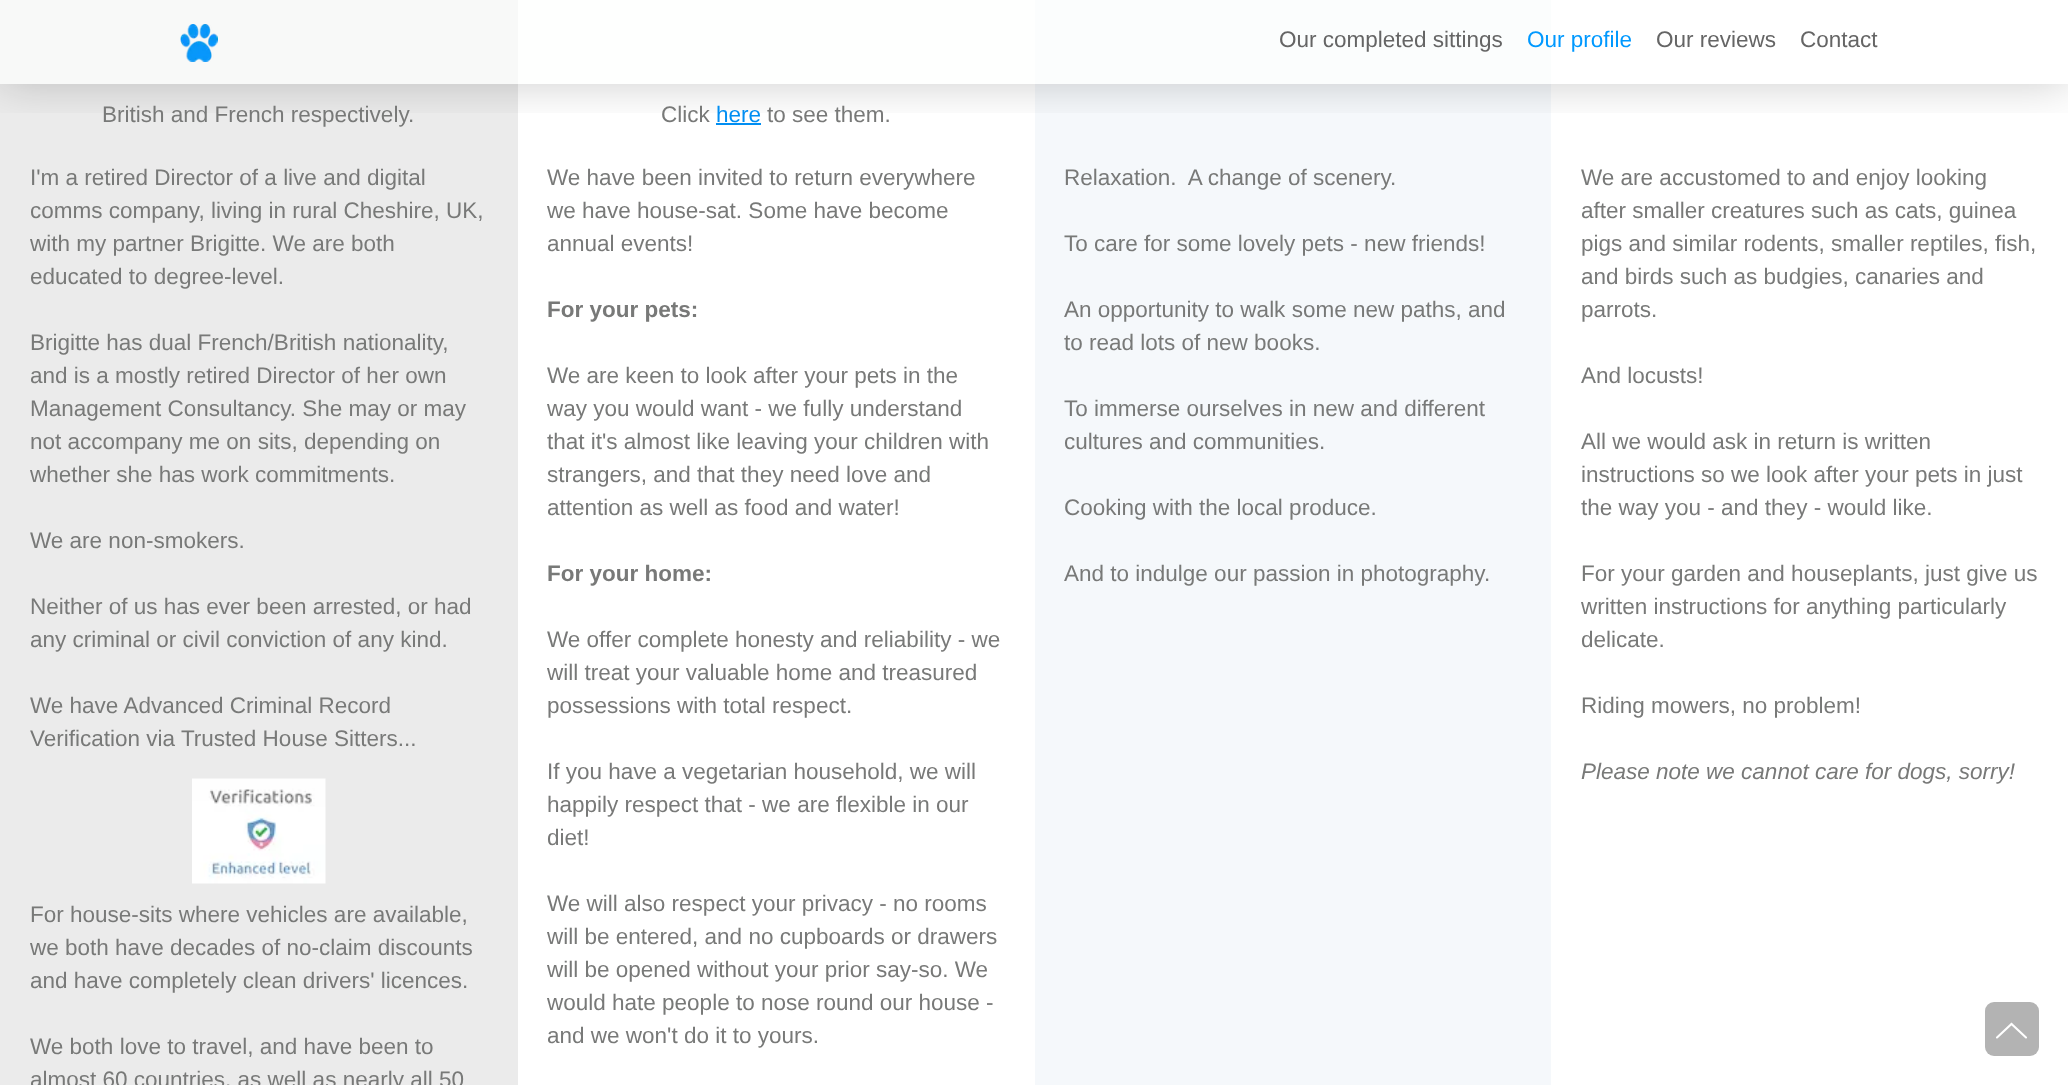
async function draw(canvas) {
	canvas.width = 2068;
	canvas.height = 1085;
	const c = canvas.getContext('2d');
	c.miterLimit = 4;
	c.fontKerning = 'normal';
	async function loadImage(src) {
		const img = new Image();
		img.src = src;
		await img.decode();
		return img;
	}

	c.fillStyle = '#fff';
	c.fillRect(0, 0, 2068, 1085);
	for (const [x, y, w, h, color] of [
		[0, 0, 518, 1085, '#ebebeb'],
		[716, 123, 45, 2, '#018ef2'],
		[1035, 0, 516, 1085, '#f5f8fb'],
	]) {
		c.fillStyle = color;
		c.fillRect(x, y, w, h);
	}
	c.save();
	c.beginPath();
	c.rect(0, 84, 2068, 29);
	c.clip();
	c.fillStyle = '#00000033';
	c.filter = 'blur(22.5px)';
	c.beginPath();
	c.rect(0, 0, 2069, 84);
	c.fill();
	c.filter = 'none';
	c.restore();
	c.fillStyle = '#fefffeb3';
	c.fillRect(0, 0, 1551, 84);
	c.drawImage(await loadImage('img1.png'), 180, 24, 38, 38);
	c.font = '22.5px Liberation Sans';
	c.fillStyle = '#656565';
	c.fillText('Our completed sittings', 1279, 47);
	c.fillStyle = '#09f';
	c.fillText('Our profile', 1527, 47);
	c.fillStyle = '#656565';
	c.fillText('Our reviews', 1656, 47);
	c.fillText('Contact', 1800, 47);
	c.fillStyle = '#787978';
	for (const [text, x, y] of [
		['British and French respectively.', 102, 122],
		['I\'m a retired Director of a live and digital', 30, 185],
		['comms company, living in rural Cheshire, UK,', 30, 218],
		['with my partner Brigitte. We are both', 30, 251],
		['educated to degree-level.', 30, 284],
		['Brigitte has dual French/British nationality,', 30, 350],
		['and is a mostly retired Director of her own', 30, 383],
		['Management Consultancy. She may or may', 30, 416],
		['not accompany me on sits, depending on', 30, 449],
		['whether she has work commitments.', 30, 482],
		['We are non-smokers.', 30, 548],
		['Neither of us has ever been arrested, or had', 30, 614],
		['any criminal or civil conviction of any kind.', 30, 647],
		['We have Advanced Criminal Record', 30, 713],
		['Verification via Trusted House Sitters...', 30, 746],
	]) {
		c.fillText(text, x, y);
	}
	c.drawImage(await loadImage('img2.png'), 192, 778, 134, 106);
	for (const [text, x, y] of [
		['For house-sits where vehicles are available,', 30, 922],
		['we both have decades of no-claim discounts', 30, 955],
		['and have completely clean drivers\' licences.', 30, 988],
		['We both love to travel, and have been to', 30, 1054],
		['almost 60 countries, as well as nearly all 50', 30, 1087],
		['Click', 661, 122],
	]) {
		c.fillText(text, x, y);
	}
	c.fillStyle = '#018ef2';
	c.fillText('here', 716, 122);
	c.fillStyle = '#787978';
	for (const [text, x, y] of [
		['to see them.', 767, 122],
		['We have been invited to return everywhere', 547, 185],
		['we have house-sat. Some have become', 547, 218],
		['annual events!', 547, 251],
	]) {
		c.fillText(text, x, y);
	}
	c.font = 'bold 22.5px Liberation Sans';
	c.fillText('For your pets:', 547, 317);
	c.font = '22.5px Liberation Sans';
	for (const [text, x, y] of [
		['We are keen to look after your pets in the', 547, 383],
		['way you would want - we fully understand', 547, 416],
		['that it\'s almost like leaving your children with', 547, 449],
		['strangers, and that they need love and', 547, 482],
		['attention as well as food and water!', 547, 515],
	]) {
		c.fillText(text, x, y);
	}
	c.font = 'bold 22.5px Liberation Sans';
	c.fillText('For your home:', 547, 581);
	c.font = '22.5px Liberation Sans';
	for (const [text, x, y] of [
		['We offer complete honesty and reliability - we', 547, 647],
		['will treat your valuable home and treasured', 547, 680],
		['possessions with total respect.', 547, 713],
		['If you have a vegetarian household, we will', 547, 779],
		['happily respect that - we are flexible in our', 547, 812],
		['diet!', 547, 845],
		['We will also respect your privacy - no rooms', 547, 911],
		['will be entered, and no cupboards or drawers', 547, 944],
		['will be opened without your prior say-so. We', 547, 977],
		['would hate people to nose round our house -', 547, 1010],
		['and we won\'t do it to yours.', 547, 1043],
		['Relaxation.  A change of scenery.', 1064, 185],
		['To care for some lovely pets - new friends!', 1064, 251],
		['An opportunity to walk some new paths, and', 1064, 317],
		['to read lots of new books.', 1064, 350],
		['To immerse ourselves in new and different', 1064, 416],
		['cultures and communities.', 1064, 449],
		['Cooking with the local produce.', 1064, 515],
		['And to indulge our passion in photography.', 1064, 581],
		['We are accustomed to and enjoy looking', 1581, 185],
		['after smaller creatures such as cats, guinea', 1581, 218],
		['pigs and similar rodents, smaller reptiles, fish,', 1581, 251],
		['and birds such as budgies, canaries and', 1581, 284],
		['parrots.', 1581, 317],
		['And locusts!', 1581, 383],
		['All we would ask in return is written', 1581, 449],
		['instructions so we look after your pets in just', 1581, 482],
		['the way you - and they - would like.', 1581, 515],
		['For your garden and houseplants, just give us', 1581, 581],
		['written instructions for anything particularly', 1581, 614],
		['delicate.', 1581, 647],
		['Riding mowers, no problem!', 1581, 713],
	]) {
		c.fillText(text, x, y);
	}
	c.font = 'italic 22.5px Liberation Sans';
	c.fillText('Please note we cannot care for dogs, sorry!', 1581, 779);
	c.fillStyle = '#b3b3b3';
	c.beginPath();
	c.roundRect(1985, 1002, 54, 54, 9);
	c.fill();
	c.beginPath();
	c.moveTo(2026, 1037.5);
	c.lineTo(2011.5, 1024);
	c.lineTo(1997, 1037.5);
	c.strokeStyle = '#fff';
	c.lineWidth = 2.1;
	c.lineCap = 'round';
	c.stroke();
}

draw(document.querySelector('canvas'));
